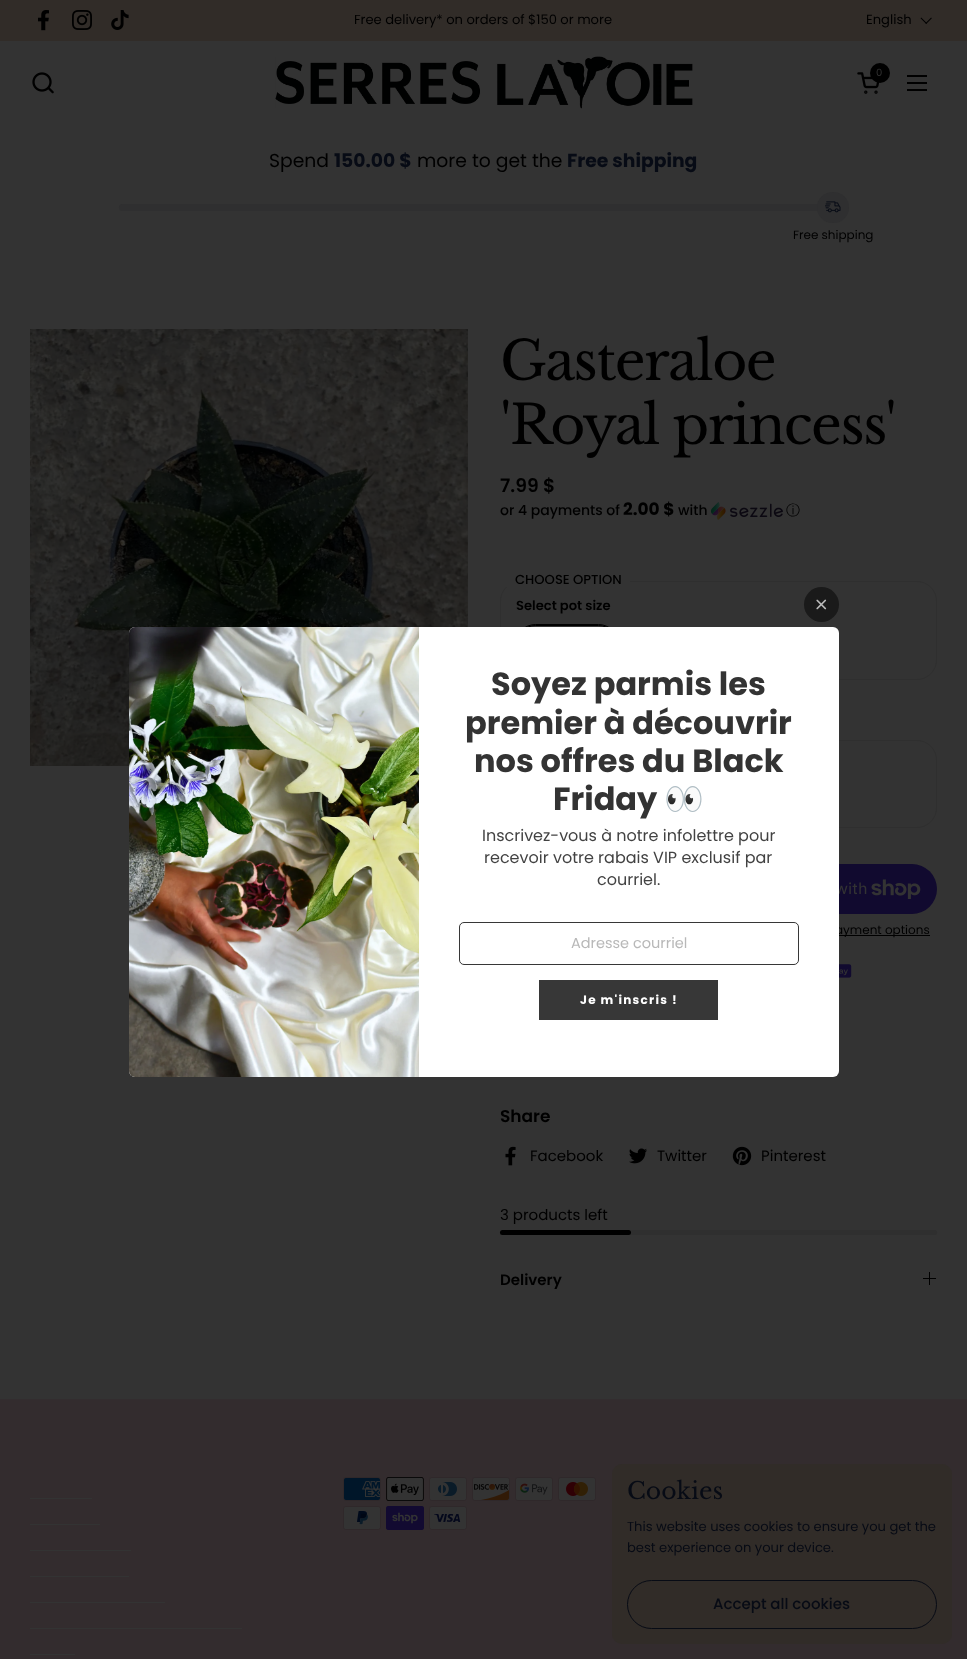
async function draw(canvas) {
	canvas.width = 967;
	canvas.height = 1659;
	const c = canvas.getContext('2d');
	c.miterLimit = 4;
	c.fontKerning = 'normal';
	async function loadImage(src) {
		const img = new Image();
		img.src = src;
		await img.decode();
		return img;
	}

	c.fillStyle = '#333';
	c.fillRect(0, 0, 967, 1659);
	c.fillStyle = '#312c28';
	c.fillRect(0, 0, 967, 41);
	c.drawImage(await loadImage('img1.png'), 38, 10, 11, 21);
	c.drawImage(await loadImage('img2.png'), 72, 10, 20, 20);
	c.drawImage(await loadImage('img3.png'), 111, 10, 18, 20);
	c.font = '13.1px Poppins';
	c.fillStyle = '#000';
	c.fillText('Free delivery* on orders of $150 or more', 354, 24);
	c.fillText('English', 866, 24);
	c.drawImage(await loadImage('img4.png'), 920, 17, 12, 7);
	c.drawImage(await loadImage('img5.png'), 32, 72, 22, 22);
	c.drawImage(await loadImage('img6.png'), 275, 56, 418, 53);
	c.beginPath();
	c.arc(880, 73, 10, 0, 2 * Math.PI);
	c.fill();
	c.font = '10px Poppins';
	c.fillStyle = '#333';
	c.fillText('0', 876, 76);
	c.drawImage(await loadImage('img7.png'), 857, 72, 22, 22);
	for (const [x, y, w, h, color] of [
		[907, 75, 20, 2, '#000'],
		[907, 82, 20, 2, '#000'],
		[907, 89, 20, 2, '#000'],
	]) {
		c.fillStyle = color;
		c.fillRect(x, y, w, h);
	}
	c.font = '18.75px Poppins';
	c.fillText('Spend', 269, 167);
	c.font = 'bold 18.75px Poppins';
	c.fillStyle = '#070b15';
	c.fillText('150.00 $', 334, 167);
	c.font = '18.75px Poppins';
	c.fillStyle = '#000';
	c.fillText('more to get the', 417, 167);
	c.font = 'bold 18.75px Poppins';
	c.fillStyle = '#070b15';
	c.fillText('Free shipping', 567, 167);
	c.fillStyle = '#2f2f30';
	c.beginPath();
	c.roundRect(119, 204, 714, 7, 3.5);
	c.fill();
	c.beginPath();
	c.roundRect(817, 192, 32, 31, 15.5);
	c.fill();
	c.drawImage(await loadImage('img8.png'), 825, 201, 16, 12);
	c.font = '12px Poppins';
	c.fillStyle = '#000';
	c.fillText('Free shipping', 793, 239);
	c.drawImage(await loadImage('img9.png'), 30, 329, 438, 437);
	c.letterSpacing = '-1.6px';
	c.font = '53.75px Libre Baskerville';
	c.fillText('Gasteraloe', 500, 380);
	c.fillText('\'Royal princess\'', 500, 444);
	c.letterSpacing = '0px';
	c.font = '600 18.75px Poppins';
	c.fillText('7.99 $', 500, 492);
	c.font = '500 14px Poppins';
	c.fillText('or 4 payments of', 500, 515);
	c.font = 'bold 17px Poppins';
	c.fillText('2.00 $', 623, 515);
	c.font = '500 14px Poppins';
	c.fillText('with', 678, 515);
	c.drawImage(await loadImage('img10.png'), 711, 502, 72, 18);
	c.font = '500 14px WenQuanYi Zen Hei';
	c.fillText('ⓘ', 786, 515);
	c.beginPath();
	c.roundRect(500.5, 581.5, 436, 98, 19.5);
	c.strokeStyle = '#2f2f2f';
	c.stroke();
	c.fillStyle = '#333';
	c.fillRect(506, 581, 124, 6);
	c.font = '500 13.1px Poppins';
	c.fillStyle = '#000';
	c.fillText('CHOOSE OPTION', 515, 584);
	c.font = '600 13.1px Poppins';
	c.fillText('Select pot size', 516, 610);
	c.beginPath();
	c.roundRect(515.5, 624.5, 103, 40, 20);
	c.strokeStyle = '#000';
	c.stroke();
	c.beginPath();
	c.roundRect(516.5, 625.5, 101, 38, 19);
	c.stroke();
	c.beginPath();
	c.roundRect(500.5, 740.5, 436, 87, 19.5);
	c.strokeStyle = '#2f2f2f';
	c.stroke();
	c.fillStyle = '#110a2f';
	c.beginPath();
	c.roundRect(787, 864, 150, 50, 25);
	c.fill();
	c.font = '16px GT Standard';
	c.fillStyle = '#333';
	c.fillText('with', 835, 894);
	c.drawImage(await loadImage('img11.png'), 871, 879, 50, 20);
	c.fillStyle = '#000';
	c.fillRect(839, 935, 91, 1);
	c.font = '12px Poppins';
	c.fillText('ayment options', 835, 934);
	c.drawImage(await loadImage('img12.png'), 839, 964, 13, 14);
	c.font = '600 17px Poppins';
	c.fillText('Share', 500, 1122);
	c.drawImage(await loadImage('img13.png'), 505, 1146, 11, 20);
	c.font = '15px Poppins';
	c.fillText('Facebook', 530, 1161);
	c.drawImage(await loadImage('img14.png'), 629, 1148, 18, 16);
	c.fillText('Twitter', 657, 1161);
	c.drawImage(await loadImage('img15.png'), 732, 1146, 20, 20);
	c.fillText('Pinterest', 761, 1161);
	c.fillText('3 products left', 500, 1220);
	c.fillStyle = '#2f2f2f';
	c.beginPath();
	c.roundRect(500, 1230, 437, 5, 2.5);
	c.fill();
	c.fillStyle = '#000';
	c.beginPath();
	c.roundRect(500, 1230, 131, 5, 2.5);
	c.fill();
	c.font = '600 15px Poppins';
	c.fillText('Delivery', 500, 1285);
	c.fillRect(929, 1272, 1, 13);
	c.fillRect(923, 1278, 13, 1);
	c.fillStyle = '#1a1a1a';
	c.beginPath();
	c.arc(821.5, 604.5, 17.5, 0, 2 * Math.PI);
	c.fill();
	c.drawImage(await loadImage('img16.png'), 816, 599, 11, 11);
	c.fillStyle = '#fff';
	c.beginPath();
	c.roundRect(129, 627, 710, 450, 6);
	c.fill();
	c.drawImage(await loadImage('img17.png'), 129, 627, 290, 450);
	c.font = 'bold 32px Poppins';
	c.fillStyle = '#333';
	for (const [text, x, y] of [
		['Soyez parmis les', 491, 695],
		['premier à découvrir', 465, 734],
		['nos offres du Black', 474, 772],
		['Friday', 553, 810],
	]) {
		c.fillText(text, x, y);
	}
	c.font = 'bold 32px Noto Color Emoji';
	c.fillText('👀', 664, 810);
	c.font = '16px Poppins';
	c.fillStyle = '#424242';
	for (const [text, x, y] of [
		['Inscrivez-vous à notre infolettre pour', 482, 841],
		['recevoir votre rabais VIP exclusif par', 484, 863],
		['courriel.', 597, 885],
	]) {
		c.fillText(text, x, y);
	}
	c.beginPath();
	c.roundRect(459.5, 922.5, 339, 42, 4.5);
	c.strokeStyle = '#373737';
	c.stroke();
	c.font = '14.5px Poppins';
	c.fillStyle = '#b8b8b8';
	c.fillText('Adresse courriel', 571, 948);
	c.fillStyle = '#373737';
	c.fillRect(539, 980, 179, 40);
	c.letterSpacing = '1.25px';
	c.font = 'bold 12px Poppins';
	c.fillStyle = '#fff';
	c.fillText('Je m\'inscris !', 580, 1004);
	for (const [x, y, w, h, color] of [
		[0, 1400, 967, 259, '#332c2e'],
		[0, 1399, 967, 1, '#332d2f'],
		[30, 1498, 62, 1, '#333'],
		[30, 1524, 70, 1, '#333'],
		[30, 1550, 101, 1, '#333'],
		[30, 1576, 99, 1, '#333'],
		[30, 1602, 135, 1, '#333'],
		[30, 1628, 212, 1, '#333'],
		[30, 1654, 45, 1, '#333'],
	]) {
		c.fillStyle = color;
		c.fillRect(x, y, w, h);
	}
	c.drawImage(await loadImage('img18.png'), 343, 1477, 38, 24);
	c.drawImage(await loadImage('img19.png'), 386, 1477, 38, 24);
	c.drawImage(await loadImage('img20.png'), 429, 1477, 38, 24);
	c.drawImage(await loadImage('img21.png'), 472, 1477, 38, 24);
	c.drawImage(await loadImage('img22.png'), 515, 1477, 38, 24);
	c.drawImage(await loadImage('img23.png'), 558, 1477, 38, 24);
	c.drawImage(await loadImage('img24.png'), 343, 1506, 38, 24);
	c.drawImage(await loadImage('img25.png'), 386, 1506, 38, 24);
	c.drawImage(await loadImage('img26.png'), 429, 1506, 38, 24);
	c.fillStyle = '#312c28';
	c.beginPath();
	c.roundRect(612, 1464, 340, 180, 10);
	c.fill();
	c.letterSpacing = '0px';
	c.font = '23.5px Libre Baskerville';
	c.fillStyle = '#070b15';
	c.fillText('Cookies', 627, 1499);
	c.font = '13.1px Poppins';
	c.fillText('This website uses cookies to ensure you get the', 627, 1531);
	c.fillText('best experience on your device.', 627, 1552);
	c.beginPath();
	c.roundRect(627.5, 1580.5, 309, 48, 24);
	c.strokeStyle = '#070b15';
	c.stroke();
	c.font = '500 15px Poppins';
	c.fillText('Accept all cookies', 713, 1609);
}

draw(document.querySelector('canvas'));
